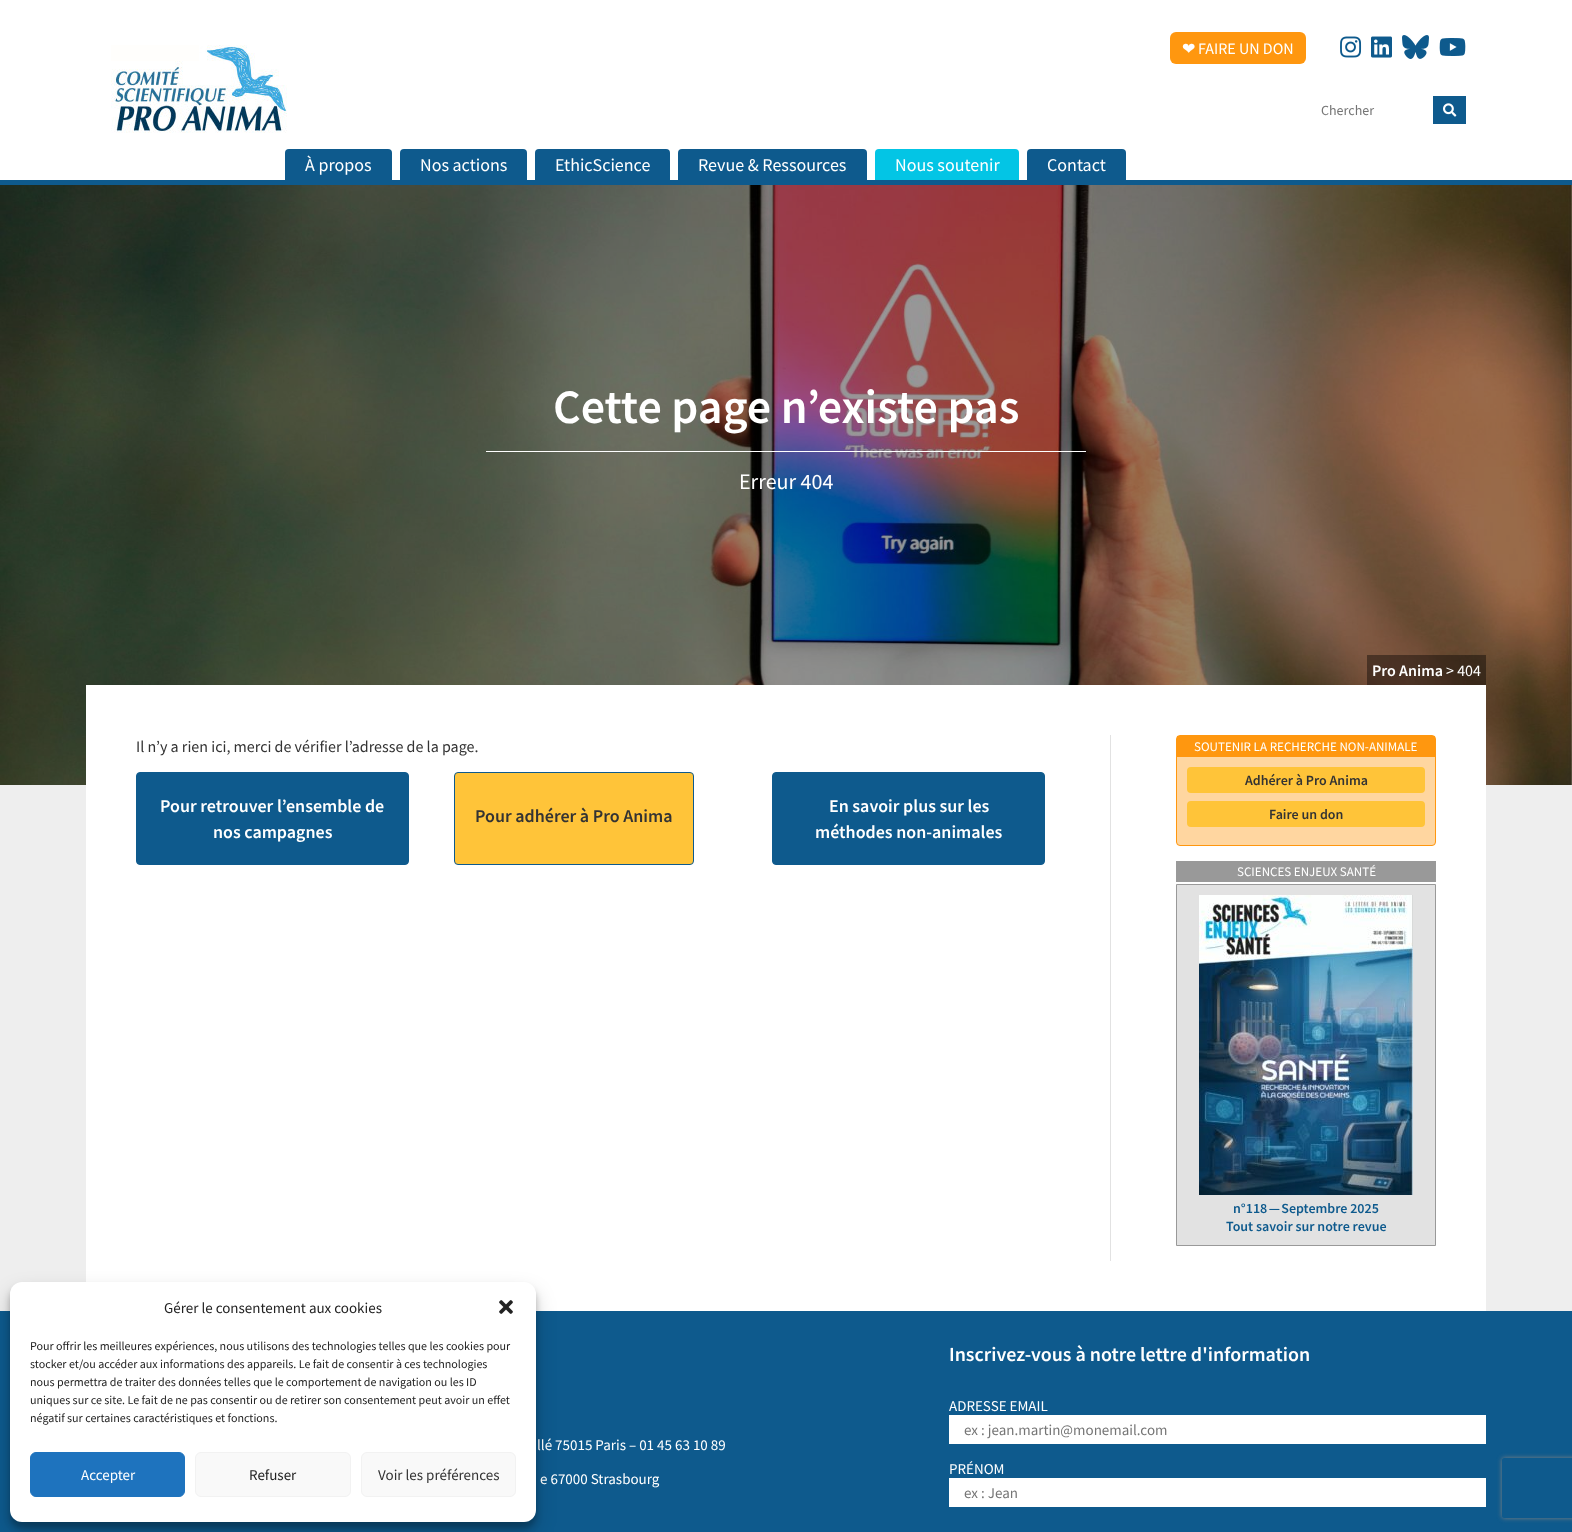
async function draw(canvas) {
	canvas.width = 1572;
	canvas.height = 1532;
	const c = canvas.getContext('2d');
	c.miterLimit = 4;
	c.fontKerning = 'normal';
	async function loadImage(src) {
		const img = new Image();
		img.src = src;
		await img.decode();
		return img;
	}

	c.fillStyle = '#eee';
	c.fillRect(0, 0, 1572, 1532);
	c.fillStyle = '#fff';
	c.fillRect(0, 0, 1572, 180);
	c.fillStyle = '#0e5a8d';
	c.fillRect(0, 180, 1572, 5);
	c.drawImage(await loadImage('img1.png'), 111, 45, 176, 88);
	c.fillStyle = '#ff970f';
	c.beginPath();
	c.roundRect(1170, 32, 136, 32, 6);
	c.fill();
	c.font = '16px DejaVu Sans';
	c.fillStyle = '#fff';
	c.fillText('❤', 1182, 54);
	c.font = '16px Source Sans Pro';
	c.fillText('FAIRE UN DON', 1198, 54);
	c.drawImage(await loadImage('img2.png'), 1340, 36, 22, 22);
	c.drawImage(await loadImage('img3.png'), 1371, 36, 21, 22);
	c.drawImage(await loadImage('img4.png'), 1402, 35, 27, 24);
	c.drawImage(await loadImage('img5.png'), 1439, 38, 27, 18);
	c.font = '14px Source Sans Pro';
	c.fillStyle = '#757575';
	c.fillText('Chercher', 1321, 115);
	c.fillStyle = '#0e5a8d';
	c.fillRect(1433, 96, 33, 28);
	c.drawImage(await loadImage('img6.png'), 1443, 103, 14, 14);
	c.beginPath();
	c.roundRect(285, 149, 107, 31, [4, 4, 0, 0]);
	c.fill();
	c.font = '18px Source Sans Pro';
	c.fillStyle = '#fff';
	c.fillText('À propos', 305, 171);
	c.fillStyle = '#0e5a8d';
	c.beginPath();
	c.roundRect(400, 149, 127, 31, [4, 4, 0, 0]);
	c.fill();
	c.fillStyle = '#fff';
	c.fillText('Nos actions', 420, 171);
	c.fillStyle = '#0e5a8d';
	c.beginPath();
	c.roundRect(535, 149, 135, 31, [4, 4, 0, 0]);
	c.fill();
	c.fillStyle = '#fff';
	c.fillText('EthicScience', 555, 171);
	c.fillStyle = '#0e5a8d';
	c.beginPath();
	c.roundRect(678, 149, 189, 31, [4, 4, 0, 0]);
	c.fill();
	c.fillStyle = '#fff';
	c.fillText('Revue & Ressources', 698, 171);
	c.fillStyle = '#03c5e5';
	c.beginPath();
	c.roundRect(875, 149, 144, 31, [4, 4, 0, 0]);
	c.fill();
	c.fillStyle = '#fff';
	c.fillText('Nous soutenir', 895, 171);
	c.fillStyle = '#0e5a8d';
	c.beginPath();
	c.roundRect(1027, 149, 99, 31, [4, 4, 0, 0]);
	c.fill();
	c.fillStyle = '#fff';
	c.fillText('Contact', 1047, 171);
	c.drawImage(await loadImage('img7.png'), 0, 185, 1572, 600);
	c.font = '600 48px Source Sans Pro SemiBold';
	c.fillText('Cette page n’existe pas', 553, 423);
	c.fillRect(486, 451, 600, 1);
	c.font = '22px Source Sans Pro';
	c.fillText('Erreur 404', 739, 489);
	c.fillStyle = '#00000066';
	c.fillRect(1367, 655, 119, 30);
	c.font = '600 16px Source Sans Pro SemiBold';
	c.fillStyle = '#fff';
	c.fillText('Pro Anima', 1372, 676);
	c.font = '16px Source Sans Pro';
	c.fillText('> 404', 1446, 676);
	c.fillRect(86, 685, 1400, 626);
	c.fillStyle = '#e2e2e2';
	c.fillRect(1110, 735, 1, 526);
	c.fillStyle = '#333';
	c.fillText('Il n’y a rien ici, merci de vérifier l’adresse de la page.', 136, 752);
	c.fillStyle = '#0e5a8d';
	c.beginPath();
	c.roundRect(136.5, 772.5, 272, 92, 3.5);
	c.fill();
	c.strokeStyle = '#0e5a8d';
	c.stroke();
	c.font = '600 18px Source Sans Pro SemiBold';
	c.fillStyle = '#fff';
	c.fillText('Pour retrouver l’ensemble de', 160, 812);
	c.fillText('nos campagnes', 213, 838);
	c.fillStyle = '#ffc439';
	c.beginPath();
	c.roundRect(454.5, 772.5, 239, 92, 3.5);
	c.fill();
	c.stroke();
	c.fillStyle = '#333';
	c.fillText('Pour adhérer à Pro Anima', 475, 822);
	c.fillStyle = '#0e5a8d';
	c.beginPath();
	c.roundRect(772.5, 772.5, 272, 92, 3.5);
	c.fill();
	c.stroke();
	c.fillStyle = '#fff';
	c.fillText('En savoir plus sur les', 829, 812);
	c.fillText('méthodes non-animales', 815, 838);
	c.fillStyle = '#ffd6a0';
	c.beginPath();
	c.roundRect(1176.5, 735.5, 259, 110, 3.5);
	c.fill();
	c.strokeStyle = '#ff970f';
	c.stroke();
	c.fillStyle = '#ff970f';
	c.fillRect(1177, 736, 258, 21);
	c.font = '13px Source Sans Pro';
	c.fillStyle = '#fff';
	c.fillText('SOUTENIR LA RECHERCHE NON-ANIMALE', 1194, 751);
	c.fillStyle = '#ffc439';
	c.beginPath();
	c.roundRect(1187, 767, 238, 26, 4);
	c.fill();
	c.font = '600 14px Source Sans Pro SemiBold';
	c.fillStyle = '#333';
	c.fillText('Adhérer à Pro Anima', 1245, 785);
	c.fillStyle = '#ffc439';
	c.beginPath();
	c.roundRect(1187, 801, 238, 26, 4);
	c.fill();
	c.fillStyle = '#333';
	c.fillText('Faire un don', 1269, 819);
	c.fillStyle = '#999';
	c.fillRect(1176, 861, 260, 21);
	c.font = '13px Source Sans Pro';
	c.fillStyle = '#fff';
	c.fillText('SCIENCES ENJEUX SANTÉ', 1237, 876);
	c.fillStyle = '#e2e2e2';
	c.beginPath();
	c.rect(1176.5, 884.5, 259, 361);
	c.fill();
	c.strokeStyle = '#999';
	c.stroke();
	c.drawImage(await loadImage('img8.png'), 1199, 895, 214, 300);
	c.font = '600 14px Source Sans Pro SemiBold';
	c.fillStyle = '#0e5a8d';
	c.fillText('n°118 — Septembre 2025', 1233, 1213);
	c.fillText('Tout savoir sur notre revue', 1226, 1231);
	c.fillRect(0, 1311, 1572, 221);
	c.font = '15px Source Sans Pro';
	c.fillStyle = '#fff';
	c.fillText('llé 75015 Paris – 01 45 63 10 89', 537, 1450);
	c.fillText('e 67000 Strasbourg', 540, 1484);
	c.font = '600 20px Source Sans Pro SemiBold';
	c.fillText('Inscrivez-vous à notre lettre d\'information', 949, 1361);
	c.font = '15px Source Sans Pro';
	c.fillText('ADRESSE EMAIL', 949, 1411);
	c.fillRect(949, 1415, 537, 29);
	c.fillStyle = '#757575';
	c.fillText('ex : jean.martin@monemail.com', 964, 1435);
	c.fillStyle = '#fff';
	c.fillText('PRÉNOM', 949, 1474);
	c.fillRect(949, 1478, 537, 29);
	c.fillStyle = '#757575';
	c.fillText('ex : Jean', 964, 1498);
	c.fillStyle = '#0000003b';
	c.filter = 'blur(3px)';
	c.beginPath();
	c.roundRect(10, 1288, 526, 240, 12);
	c.fill();
	c.filter = 'none';
	c.fillStyle = '#00000030';
	c.filter = 'blur(10px)';
	c.beginPath();
	c.roundRect(10, 1292, 526, 240, 12);
	c.fill();
	c.filter = 'none';
	c.fillStyle = '#fff';
	c.beginPath();
	c.roundRect(10, 1282, 526, 240, 12);
	c.fill();
	c.fillStyle = '#222';
	c.fillText('Gérer le consentement aux cookies', 164, 1313);
	c.drawImage(await loadImage('img9.png'), 499, 1300, 14, 14);
	c.font = '12px Source Sans Pro';
	for (const [text, x, y] of [
		['Pour offrir les meilleures expériences, nous utilisons des technologies telles que les cookies pour', 30, 1350],
		['stocker et/ou accéder aux informations des appareils. Le fait de consentir à ces technologies', 30, 1368],
		['nous permettra de traiter des données telles que le comportement de navigation ou les ID', 30, 1386],
		['uniques sur ce site. Le fait de ne pas consentir ou de retirer son consentement peut avoir un effet', 30, 1404],
		['négatif sur certaines caractéristiques et fonctions.', 30, 1422],
	]) {
		c.fillText(text, x, y);
	}
	c.fillStyle = '#1e73be';
	c.beginPath();
	c.roundRect(30.5, 1452.5, 154, 44, 5.5);
	c.fill();
	c.strokeStyle = '#1e73be';
	c.stroke();
	c.font = '15px Source Sans Pro';
	c.fillStyle = '#fff';
	c.fillText('Accepter', 81, 1480);
	c.fillStyle = '#f9f9f9';
	c.beginPath();
	c.roundRect(195.5, 1452.5, 155, 44, 5.5);
	c.fill();
	c.strokeStyle = '#f2f2f2';
	c.stroke();
	c.fillStyle = '#222';
	c.fillText('Refuser', 249, 1480);
	c.fillStyle = '#f9f9f9';
	c.beginPath();
	c.roundRect(361.5, 1452.5, 154, 44, 5.5);
	c.fill();
	c.stroke();
	c.fillStyle = '#333';
	c.fillText('Voir les préférences', 378, 1480);
	c.save();
	c.beginPath();
	c.moveTo(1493, 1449);
	c.lineTo(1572, 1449);
	c.lineTo(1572, 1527);
	c.lineTo(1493, 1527);
	c.closePath();
	c.moveTo(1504, 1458);
	c.lineTo(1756, 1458);
	c.bezierCurveTo(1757, 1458, 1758, 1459, 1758, 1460);
	c.lineTo(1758, 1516);
	c.bezierCurveTo(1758, 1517, 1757, 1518, 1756, 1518);
	c.lineTo(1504, 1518);
	c.bezierCurveTo(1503, 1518, 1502, 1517, 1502, 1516);
	c.lineTo(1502, 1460);
	c.bezierCurveTo(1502, 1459, 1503, 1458, 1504, 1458);
	c.closePath();
	c.clip('evenodd');
	c.fillStyle = '#808080';
	c.filter = 'blur(2.5px)';
	c.beginPath();
	c.roundRect(1502, 1458, 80, 60, 2);
	c.fill();
	c.filter = 'none';
	c.restore();
}

draw(document.querySelector('canvas'));
